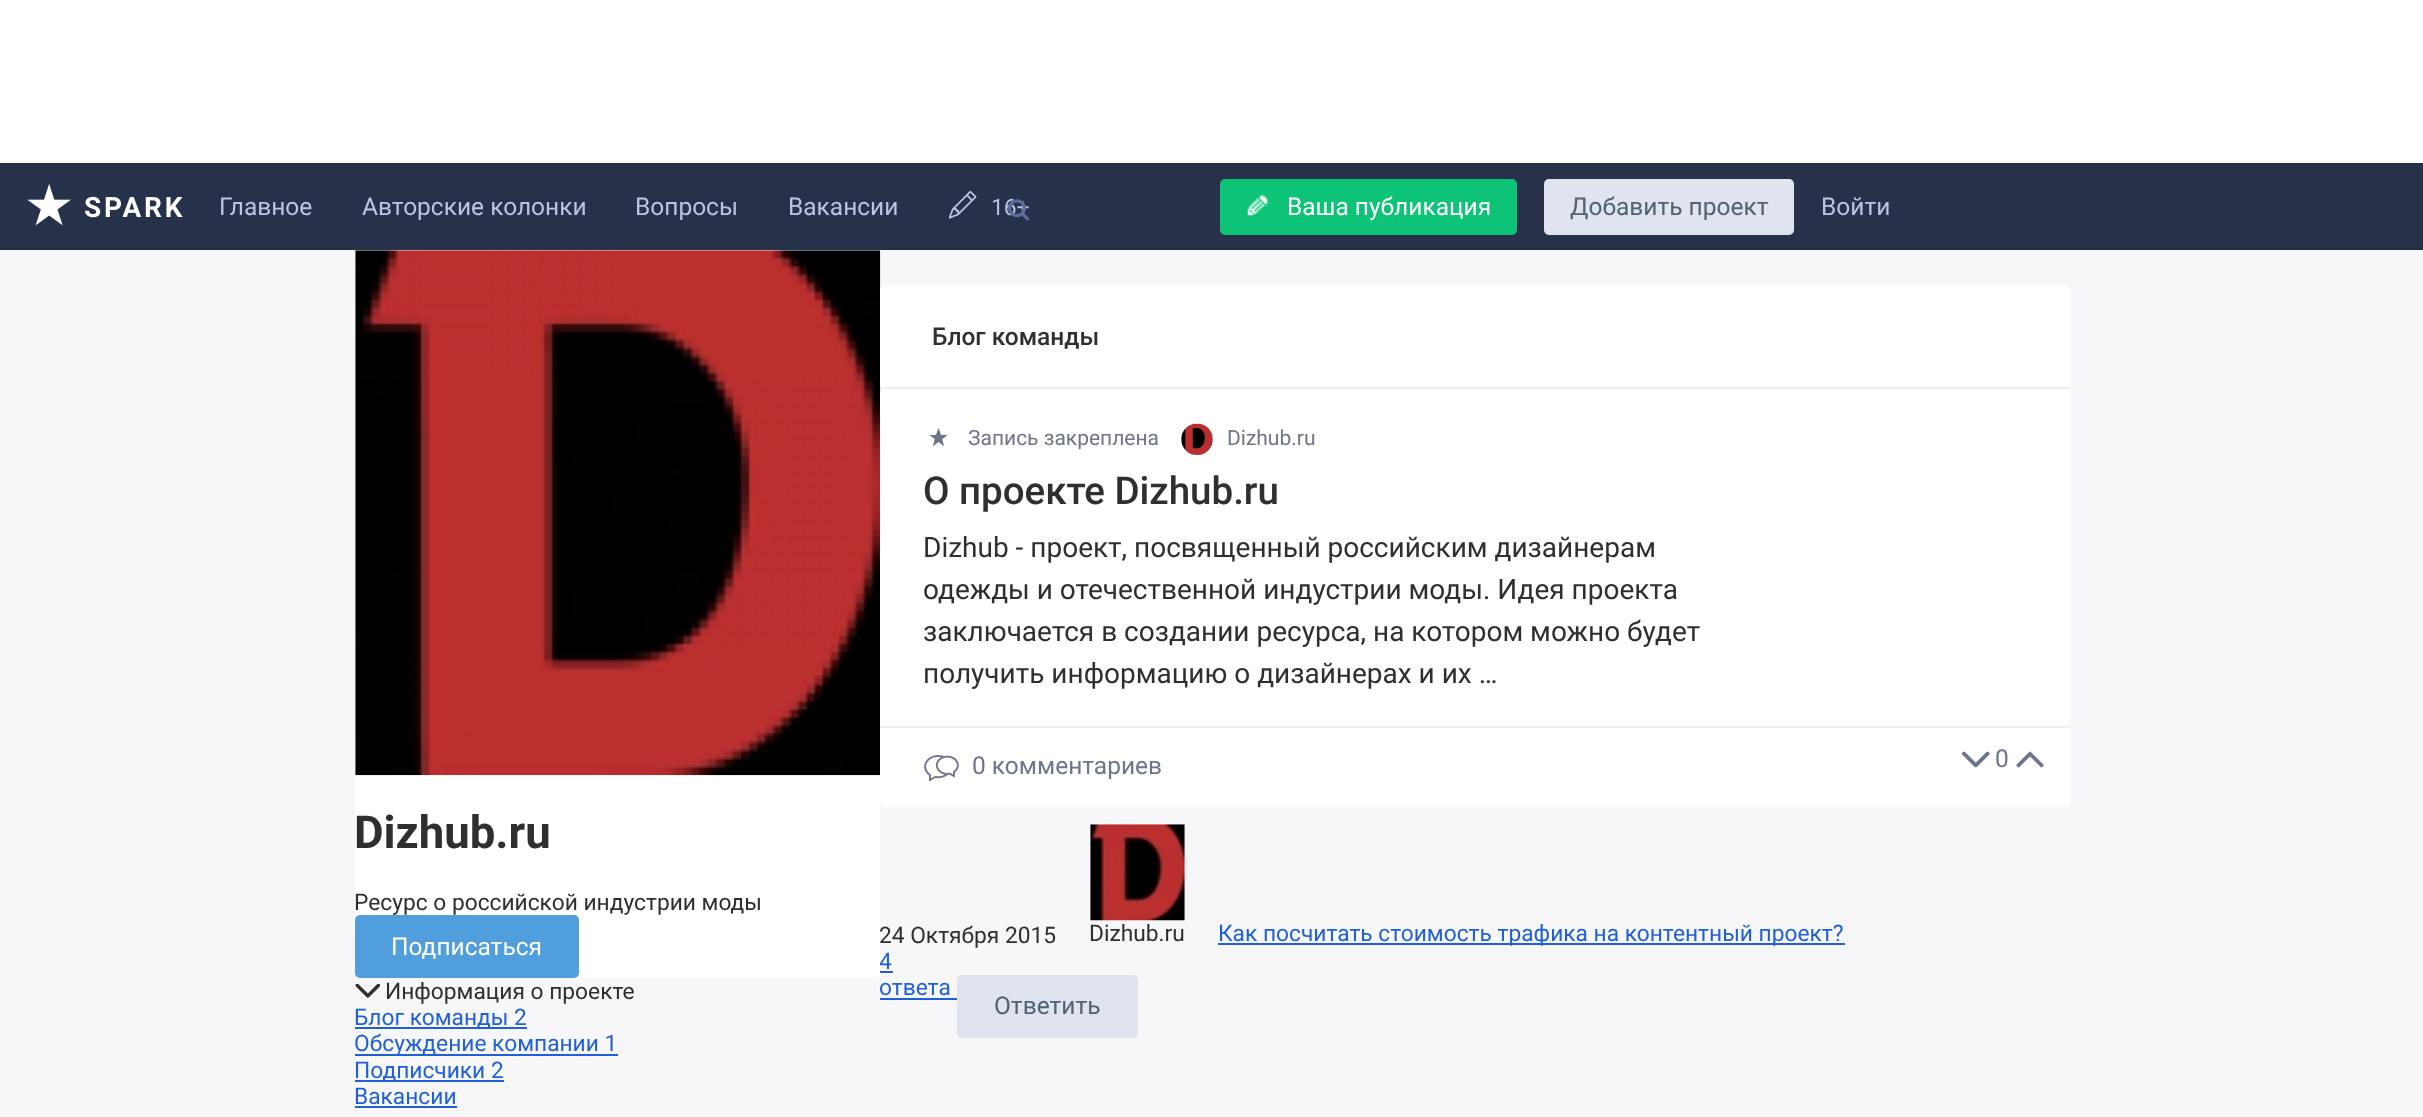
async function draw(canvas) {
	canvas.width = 2423;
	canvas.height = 1117;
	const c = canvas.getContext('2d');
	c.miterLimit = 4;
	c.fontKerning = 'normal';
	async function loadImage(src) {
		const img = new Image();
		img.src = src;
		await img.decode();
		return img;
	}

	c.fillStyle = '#273149';
	c.fillRect(0, 0, 2423, 1117);
	c.fillStyle = '#fff';
	c.fillRect(0, 0, 2423, 163);
	c.drawImage(await loadImage('img1.png'), 27, 184, 156, 42);
	c.font = '24.5px Roboto';
	c.fillStyle = '#bcc4e6';
	for (const [text, x, y] of [
		['Главное', 219, 215],
		['Авторские колонки', 362, 215],
		['Вопросы', 635, 215],
		['Вакансии', 788, 215],
	]) {
		c.fillText(text, x, y);
	}
	c.drawImage(await loadImage('img2.png'), 949, 191, 28, 28);
	c.font = '22.75px Roboto';
	c.fillText('16+', 991, 215);
	c.fillStyle = '#0dc378';
	c.beginPath();
	c.roundRect(1220, 179, 297, 56, 5);
	c.fill();
	c.drawImage(await loadImage('img3.png'), 1247, 194, 22, 22);
	c.font = '24.5px Roboto';
	c.fillStyle = '#fff';
	c.fillText('Ваша публикация', 1287, 215);
	c.fillStyle = '#dfe4ee';
	c.beginPath();
	c.roundRect(1544, 179, 250, 56, 5);
	c.fill();
	c.fillStyle = '#546171';
	c.fillText('Добавить проект', 1570, 215);
	c.fillStyle = '#bcc4e6';
	c.fillText('Войти', 1821, 215);
	c.drawImage(await loadImage('img4.png'), 1008, 199, 22, 22);
	c.fillStyle = '#f7f7f9';
	c.fillRect(0, 250, 2423, 867);
	c.font = '22.75px Roboto';
	c.fillStyle = '#1f60d6';
	c.fillText('4', 879, 969);
	c.fillStyle = '#fff';
	c.beginPath();
	c.roundRect(355, 250, 525, 728, 5);
	c.fill();
	c.drawImage(await loadImage('img5.png'), 355, 250, 526, 526);
	c.font = 'bold 45.5px Roboto';
	c.fillStyle = '#2f2f2f';
	c.fillText('Dizhub.ru', 354, 848);
	c.font = '22.75px Roboto';
	c.fillText('Ресурс о российской индустрии моды', 354, 910);
	c.fillStyle = '#509fdc';
	c.beginPath();
	c.roundRect(355, 915, 224, 63, 5);
	c.fill();
	c.font = '24.5px Roboto';
	c.fillStyle = '#fff';
	c.fillText('Подписаться', 391, 955);
	c.drawImage(await loadImage('img6.png'), 355, 984, 25, 14);
	c.font = '22.75px Roboto';
	c.fillStyle = '#2f2f2f';
	c.fillText('Информация о проекте', 385, 999);
	c.fillStyle = '#1f60d6';
	c.fillRect(355, 1027, 172, 2);
	c.fillText('Блог команды 2', 354, 1025);
	c.fillRect(355, 1054, 263, 2);
	c.fillText('Обсуждение компании 1', 354, 1051);
	c.fillRect(355, 1080, 149, 2);
	c.fillText('Подписчики 2', 354, 1078);
	c.fillText('Вакансии', 354, 1104);
	c.fillRect(355, 1106, 102, 2);
	c.fillStyle = '#fff';
	c.beginPath();
	c.roundRect(880, 285, 1190, 104, 5);
	c.fill();
	c.fillStyle = '#eceff3';
	c.fillRect(884, 387, 1185, 2);
	c.font = '500 24.5px Roboto';
	c.fillStyle = '#2f2f2f';
	c.fillText('Блог команды', 932, 345);
	c.fillStyle = '#fff';
	c.beginPath();
	c.roundRect(880, 389, 1190, 418, 5);
	c.fill();
	c.drawImage(await loadImage('img7.png'), 929, 428, 19, 19);
	c.font = '21px Roboto';
	c.fillStyle = '#6e758a';
	c.fillText('Запись закреплена', 968, 445);
	c.fillStyle = '#e4edf6';
	c.beginPath();
	c.roundRect(1181, 424, 32, 31, 15.5);
	c.fill();
	c.drawImage(await loadImage('img8.png'), 1181, 423, 32, 32);
	c.fillStyle = '#6e758a';
	c.fillText('Dizhub.ru', 1227, 445);
	c.font = '500 38.5px Roboto';
	c.fillStyle = '#2f2f2f';
	c.fillText('О проекте Dizhub.ru', 923, 504);
	c.font = '28px Roboto';
	for (const [text, x, y] of [
		['Dizhub - проект, посвященный российским дизайнерам', 923, 557],
		['одежды и отечественной индустрии моды. Идея проекта', 923, 599],
		['заключается в создании ресурса, на котором можно будет', 923, 641],
		['получить информацию о дизайнерах и их …', 923, 683],
	]) {
		c.fillText(text, x, y);
	}
	c.fillStyle = '#eceff3';
	c.fillRect(880, 726, 1190, 2);
	c.drawImage(await loadImage('img9.png'), 924, 755, 35, 27);
	c.font = '24.5px Roboto';
	c.fillStyle = '#6e758a';
	c.fillText('0 комментариев', 972, 774);
	c.drawImage(await loadImage('img10.png'), 1962, 751, 28, 17);
	c.fillText('0', 1995, 767);
	c.drawImage(await loadImage('img11.png'), 2016, 751, 28, 17);
	c.font = '22.75px Roboto';
	c.fillStyle = '#2f2f2f';
	c.fillText('24 Октября 2015', 879, 943);
	c.drawImage(await loadImage('img12.png'), 1090, 824, 95, 97);
	c.fillText('Dizhub.ru', 1089, 941);
	c.fillStyle = '#1f60d6';
	c.fillRect(1218, 943, 627, 2);
	c.fillText('Как посчитать стоимость трафика на контентный проект?', 1218, 941);
	c.fillRect(880, 971, 13, 2);
	c.fillText('ответа', 879, 995);
	c.fillRect(880, 998, 77, 2);
	c.fillStyle = '#dfe4ee';
	c.beginPath();
	c.roundRect(957, 975, 181, 63, 5);
	c.fill();
	c.font = '24.5px Roboto';
	c.fillStyle = '#546171';
	c.fillText('Ответить', 994, 1014);
}

draw(document.querySelector('canvas'));
